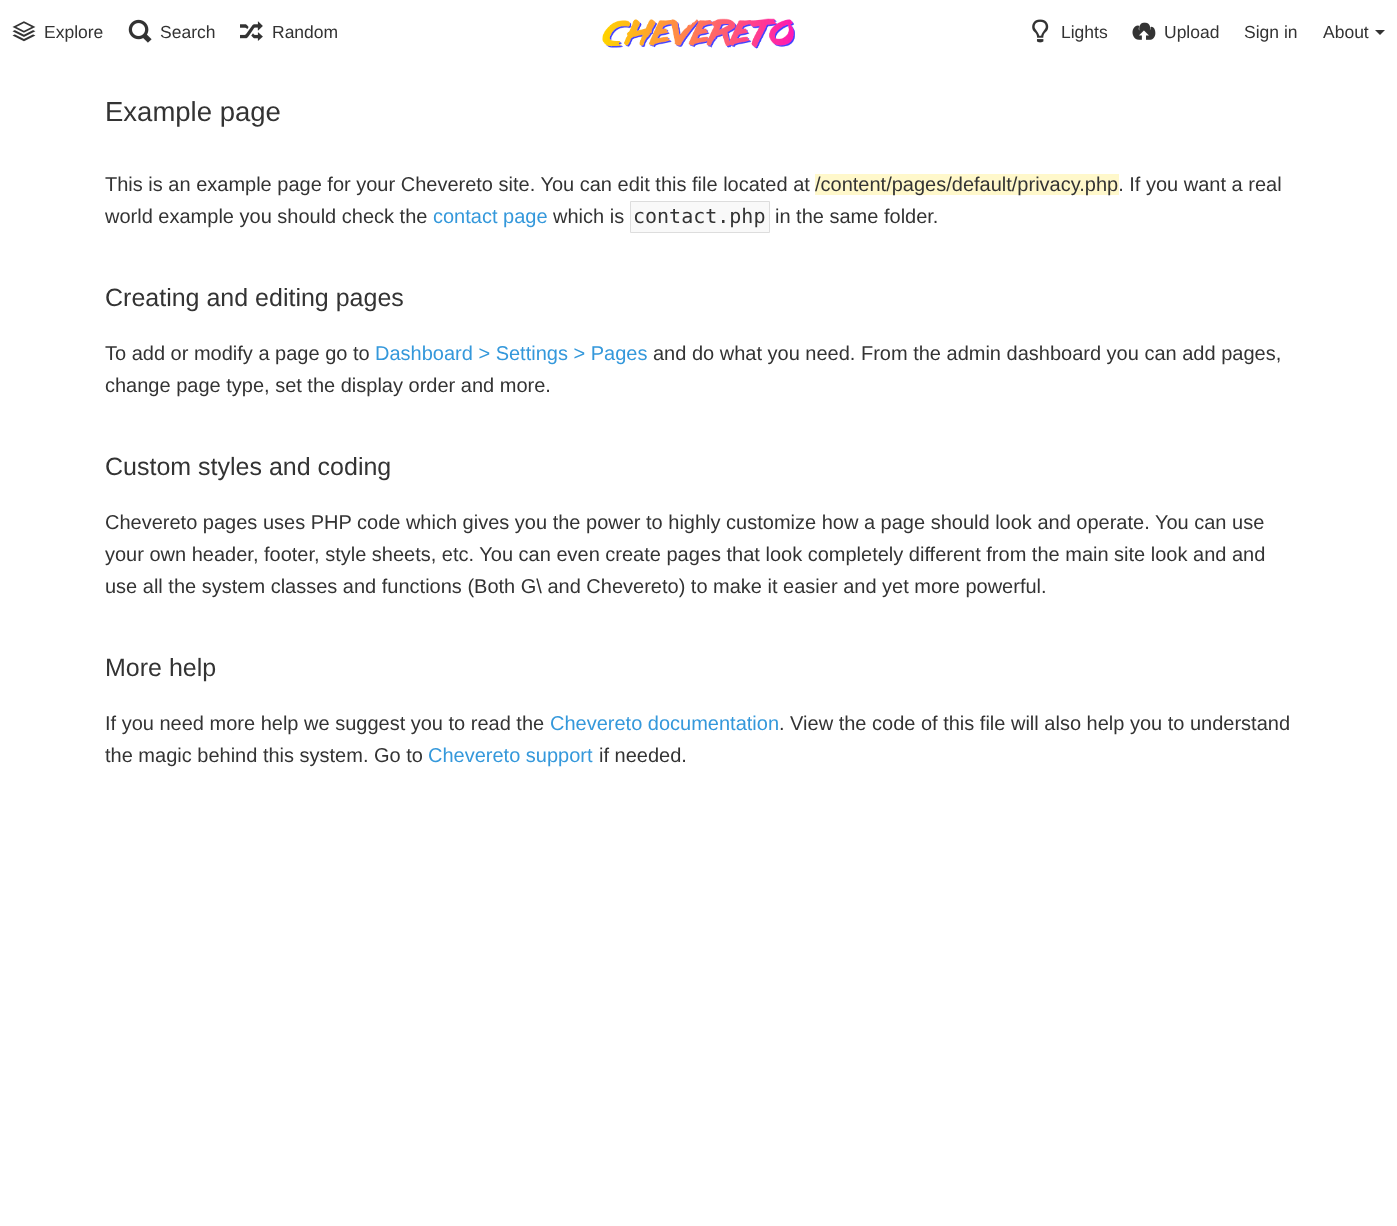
async function draw(canvas) {
	canvas.width = 1397;
	canvas.height = 1226;
	const c = canvas.getContext('2d');
	c.miterLimit = 4;
	c.fontKerning = 'normal';
	async function loadImage(src) {
		const img = new Image();
		img.src = src;
		await img.decode();
		return img;
	}

	c.fillStyle = '#fff';
	c.fillRect(0, 0, 1397, 1226);
	c.drawImage(await loadImage('img1.png'), 12, 21, 24, 21);
	c.font = '17.5px Liberation Sans';
	c.fillStyle = '#333';
	c.fillText('Explore', 44, 38);
	c.drawImage(await loadImage('img2.png'), 128, 19, 24, 24);
	c.fillText('Search', 160, 38);
	c.drawImage(await loadImage('img3.png'), 240, 21, 23, 20);
	c.fillText('Random', 272, 38);
	c.drawImage(await loadImage('img4.png'), 602, 18, 193, 31);
	c.drawImage(await loadImage('img5.png'), 1032, 19, 17, 24);
	c.fillText('Lights', 1061, 38);
	c.drawImage(await loadImage('img6.png'), 1132, 22, 24, 18);
	for (const [text, x, y] of [
		['Upload', 1164, 38],
		['Sign in', 1244, 38],
		['About', 1323, 38],
	]) {
		c.fillText(text, x, y);
	}
	c.beginPath();
	c.moveTo(1375, 30);
	c.lineTo(1385, 30);
	c.lineTo(1380, 35);
	c.closePath();
	c.fill();
	c.font = '27.5px Liberation Sans';
	c.fillText('Example page', 105, 121);
	c.font = '20px Liberation Sans';
	c.fillText('This is an example page for your Chevereto site. You can edit this file located at', 105, 191);
	c.fillStyle = '#fff8cb';
	c.fillRect(815, 174, 304, 21);
	c.fillStyle = '#333';
	c.fillText('/content/pages/default/privacy.php. If you want a real', 815, 191);
	c.fillText('world example you should check the', 105, 223);
	c.fillStyle = '#3498db';
	c.fillText('contact page', 433, 223);
	c.fillStyle = '#333';
	c.fillText('which is', 553, 223);
	c.fillStyle = '#f9f9f9';
	c.beginPath();
	c.rect(630.5, 201.5, 139, 31);
	c.fill();
	c.strokeStyle = '#ddd';
	c.stroke();
	c.font = '20px DejaVu Sans Mono';
	c.fillStyle = '#333';
	c.fillText('contact.php', 633, 223);
	c.font = '20px Liberation Sans';
	c.fillText('in the same folder.', 775, 223);
	c.font = '25px Liberation Sans';
	c.fillText('Creating and editing pages', 105, 306);
	c.font = '20px Liberation Sans';
	c.fillText('To add or modify a page go to', 105, 360);
	c.fillStyle = '#3498db';
	c.fillText('Dashboard > Settings > Pages', 375, 360);
	c.fillStyle = '#333';
	c.fillText('and do what you need. From the admin dashboard you can add pages,', 653, 360);
	c.fillText('change page type, set the display order and more.', 105, 392);
	c.font = '25px Liberation Sans';
	c.fillText('Custom styles and coding', 105, 475);
	c.font = '20px Liberation Sans';
	for (const [text, x, y] of [
		['Chevereto pages uses PHP code which gives you the power to highly customize how a page should look and operate. You can use', 105, 529],
		['your own header, footer, style sheets, etc. You can even create pages that look completely different from the main site look and and', 105, 561],
		['use all the system classes and functions (Both G\\ and Chevereto) to make it easier and yet more powerful.', 105, 593],
	]) {
		c.fillText(text, x, y);
	}
	c.font = '25px Liberation Sans';
	c.fillText('More help', 105, 676);
	c.font = '20px Liberation Sans';
	c.fillText('If you need more help we suggest you to read the', 105, 730);
	c.fillStyle = '#3498db';
	c.fillText('Chevereto documentation', 550, 730);
	c.fillStyle = '#333';
	c.fillText('. View the code of this file will also help you to understand', 779, 730);
	c.fillText('the magic behind this system. Go to', 105, 762);
	c.fillStyle = '#3498db';
	c.fillText('Chevereto support', 428, 762);
	c.fillStyle = '#333';
	c.fillText('if needed.', 599, 762);
}

draw(document.querySelector('canvas'));
